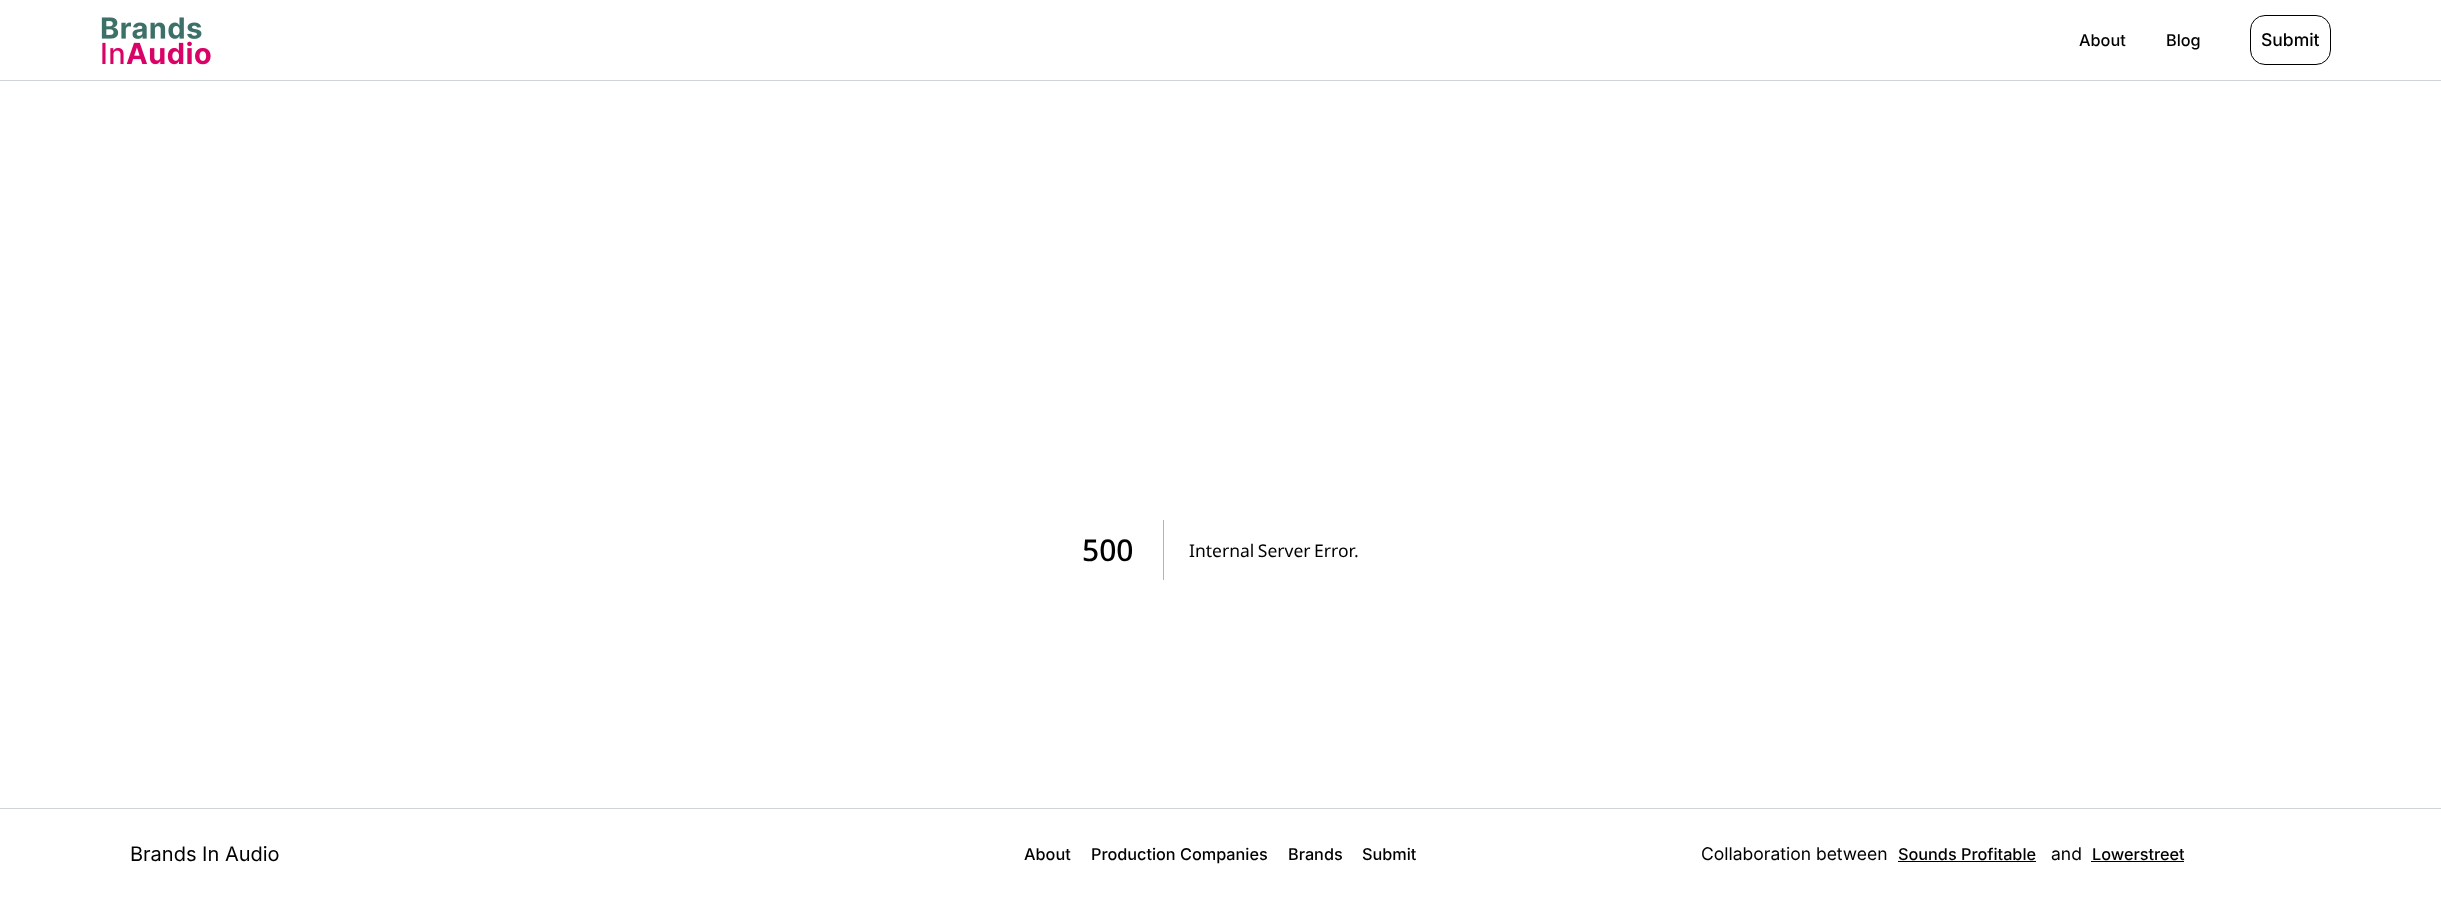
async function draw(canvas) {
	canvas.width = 2441;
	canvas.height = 898;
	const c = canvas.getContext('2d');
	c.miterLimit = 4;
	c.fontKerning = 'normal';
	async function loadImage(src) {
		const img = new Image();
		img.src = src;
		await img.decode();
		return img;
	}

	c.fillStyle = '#fff';
	c.fillRect(0, 0, 2441, 898);
	c.fillStyle = '#d1d5db';
	c.fillRect(0, 80, 2441, 1);
	c.drawImage(await loadImage('img1.png'), 101, 17, 110, 48);
	c.font = '500 16.25px Inter';
	c.fillStyle = '#000';
	c.fillText('About', 2079, 46);
	c.fillText('Blog', 2166, 46);
	c.beginPath();
	c.roundRect(2250.5, 15.5, 80, 49, 14.5);
	c.strokeStyle = '#000';
	c.stroke();
	c.font = '500 17.5px Inter';
	c.fillText('Submit', 2261, 46);
	c.fillStyle = '#b3b3b3';
	c.fillRect(1163, 520, 1, 60);
	c.font = '500 30px Noto Sans';
	c.fillStyle = '#000';
	c.fillText('500', 1082, 561);
	c.wordSpacing = '-1px';
	c.font = '17.5px Noto Sans';
	c.fillText('Internal Server Error', 1189, 557);
	c.wordSpacing = '0px';
	c.fillText('.', 1354, 557);
	c.fillStyle = '#d1d5db';
	c.fillRect(0, 808, 2441, 1);
	c.font = '20px Inter';
	c.fillStyle = '#000';
	c.fillText('Brands In Audio', 130, 861);
	c.font = '500 16.25px Inter';
	for (const [text, x, y] of [
		['About', 1024, 860],
		['Production Companies', 1091, 860],
		['Brands', 1288, 860],
		['Submit', 1362, 860],
	]) {
		c.fillText(text, x, y);
	}
	c.font = '17.5px Inter';
	c.fillText('Collaboration between', 1701, 860);
	c.font = '500 16.25px Inter';
	c.fillText('Sounds Profitable', 1898, 860);
	c.fillRect(1898, 861, 138, 1);
	c.font = '17.5px Inter';
	c.fillText('and', 2051, 860);
	c.font = '500 16.25px Inter';
	c.fillText('Lowerstreet', 2092, 860);
	c.fillRect(2091, 861, 93, 1);
}

draw(document.querySelector('canvas'));
